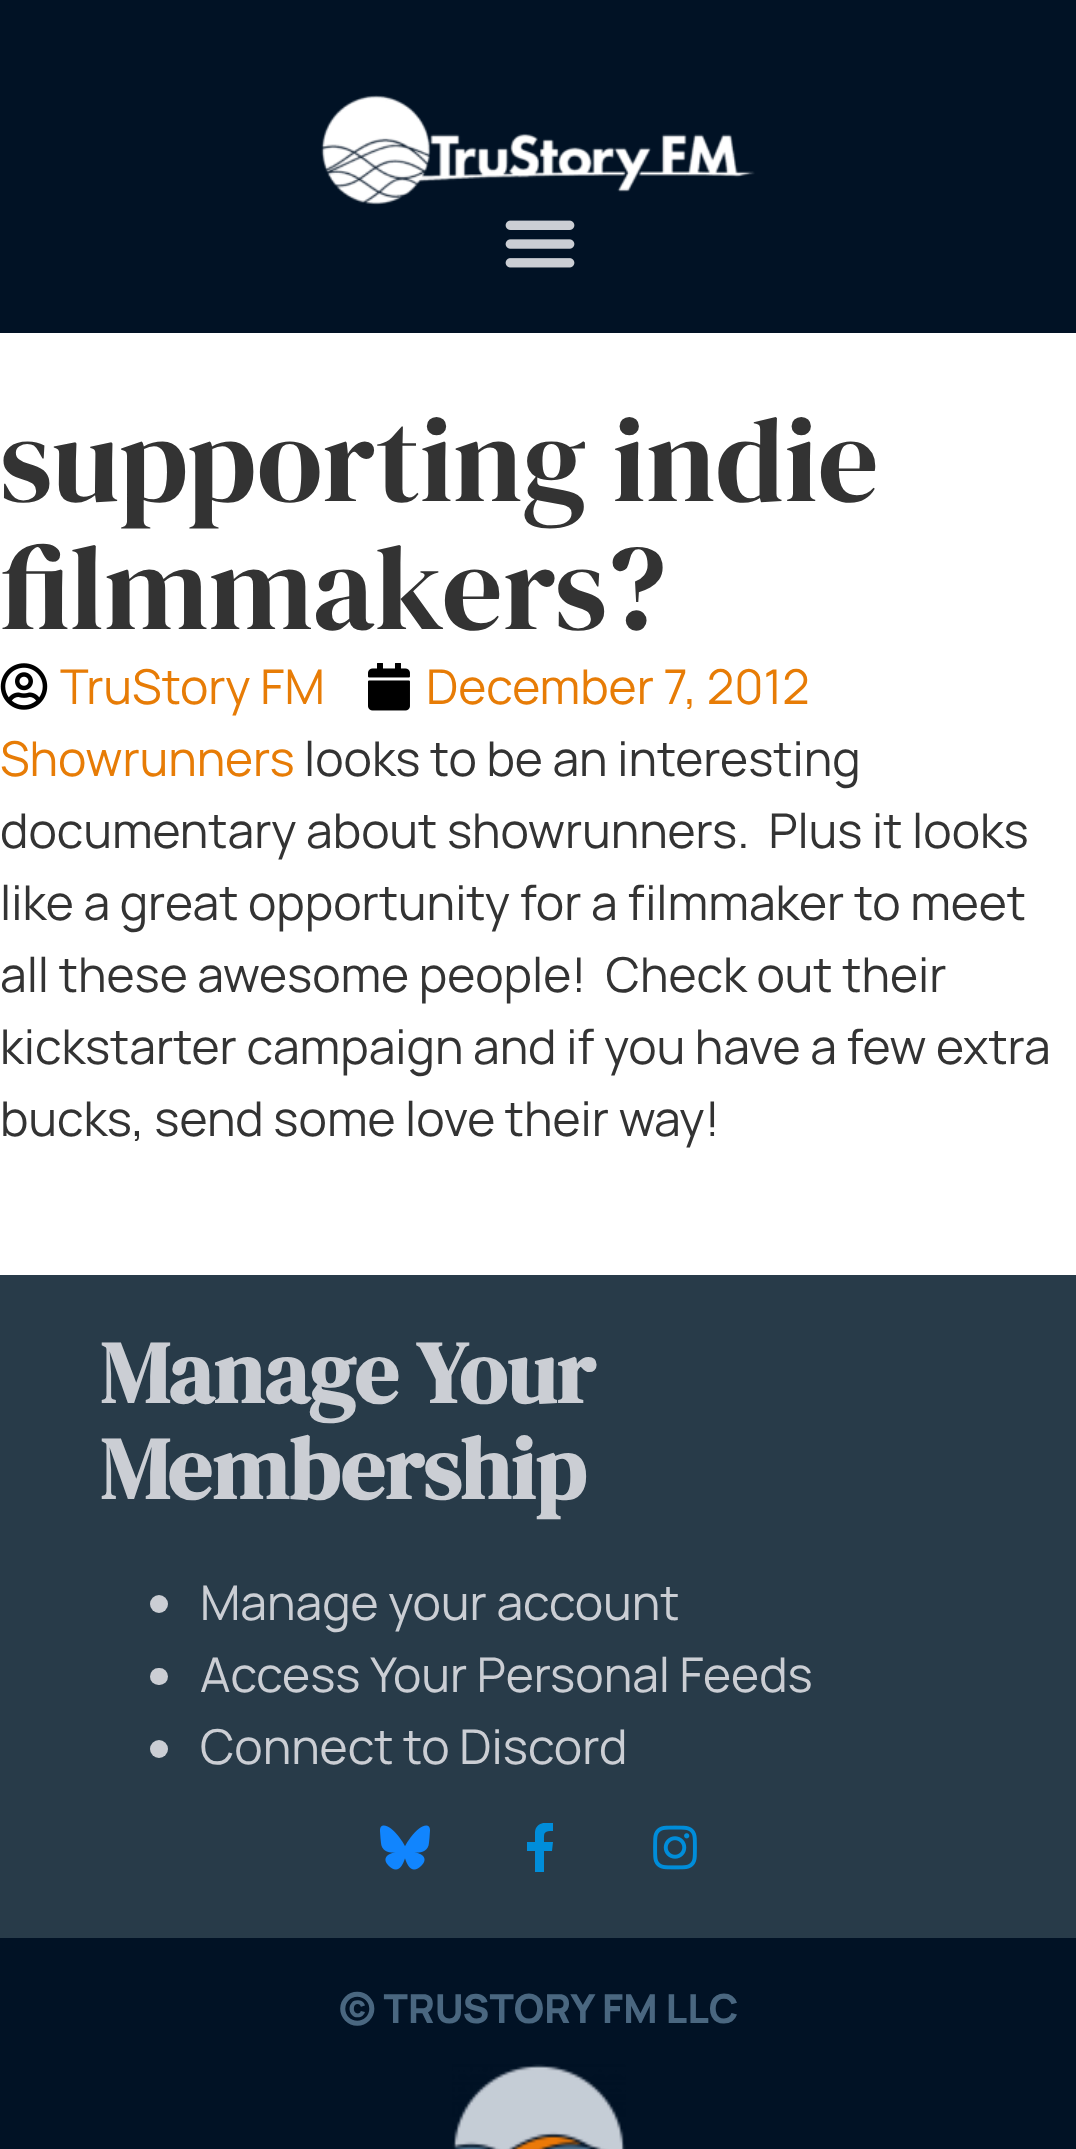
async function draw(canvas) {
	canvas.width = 1076;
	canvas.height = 2149;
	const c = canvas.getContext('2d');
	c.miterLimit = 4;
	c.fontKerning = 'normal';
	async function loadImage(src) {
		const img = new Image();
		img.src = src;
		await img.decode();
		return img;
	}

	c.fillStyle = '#fff';
	c.fillRect(0, 0, 1076, 2149);
	c.fillStyle = '#011225';
	c.fillRect(0, 0, 1076, 333);
	c.drawImage(await loadImage('img1.png'), 321, 95, 434, 110);
	c.drawImage(await loadImage('img2.png'), 505, 220, 70, 48);
	c.font = '120px DM Serif Display';
	c.fillStyle = '#333';
	c.fillText('supporting indie', 0, 501);
	c.fillText('filmmakers?', 0, 629);
	c.drawImage(await loadImage('img3.png'), 0, 663, 48, 47);
	c.font = '48px Manrope';
	c.fillStyle = '#e77c06';
	c.fillText('TruStory FM', 60, 704);
	c.drawImage(await loadImage('img4.png'), 368, 663, 42, 48);
	c.fillText('December 7, 2012', 426, 704);
	c.fillText('Showrunners', 0, 776);
	c.fillStyle = '#333';
	for (const [text, x, y] of [
		['looks to be an interesting', 304, 776],
		['documentary about showrunners.  Plus it looks', 0, 848],
		['like a great opportunity for a filmmaker to meet', 0, 920],
		['all these awesome people!  Check out their', 0, 992],
		['kickstarter campaign and if you have a few extra', 0, 1064],
		['bucks, send some love their way!', 0, 1136],
	]) {
		c.fillText(text, x, y);
	}
	c.fillStyle = '#283b49';
	c.fillRect(0, 1275, 1076, 663);
	c.font = 'bold 88px DM Serif Display';
	c.fillStyle = '#cbced4';
	c.fillText('Manage Your', 100, 1403);
	c.fillText('Membership', 100, 1499);
	c.beginPath();
	c.arc(159, 1604, 9, 0, 2 * Math.PI);
	c.fill();
	c.font = '48px Manrope';
	c.fillText('Manage your account', 200, 1620);
	c.beginPath();
	c.roundRect(150, 1668, 18, 17, 8.5);
	c.fill();
	c.fillText('Access Your Personal Feeds', 200, 1692);
	c.beginPath();
	c.arc(159, 1749, 9, 0, 2 * Math.PI);
	c.fill();
	c.fillText('Connect to Discord', 200, 1764);
	c.drawImage(await loadImage('img5.png'), 380, 1825, 50, 45);
	c.save();
	c.beginPath();
	c.rect(515, 1823, 50, 50);
	c.clip();
	c.fillStyle = '#008dda';
	c.beginPath();
	c.moveTo(552, 1851);
	c.lineTo(553, 1842);
	c.lineTo(544, 1842);
	c.bezierCurveTo(544, 1833, 543, 1831, 553, 1831);
	c.lineTo(553, 1823);
	c.bezierCurveTo(546, 1822, 536, 1822, 535, 1832);
	c.lineTo(535, 1842);
	c.lineTo(527, 1842);
	c.lineTo(527, 1851);
	c.lineTo(535, 1851);
	c.lineTo(535, 1872);
	c.lineTo(544, 1872);
	c.lineTo(544, 1851);
	c.closePath();
	c.fill();
	c.restore();
	c.drawImage(await loadImage('img6.png'), 653, 1825, 44, 45);
	c.fillStyle = '#011225';
	c.fillRect(0, 1938, 1076, 211);
	c.font = '800 40px Manrope';
	c.fillStyle = '#4a6780';
	c.fillText('© TRUSTORY FM LLC', 339, 2023);
	c.drawImage(await loadImage('img7.png'), 452, 2064, 174, 85);
}

draw(document.querySelector('canvas'));
